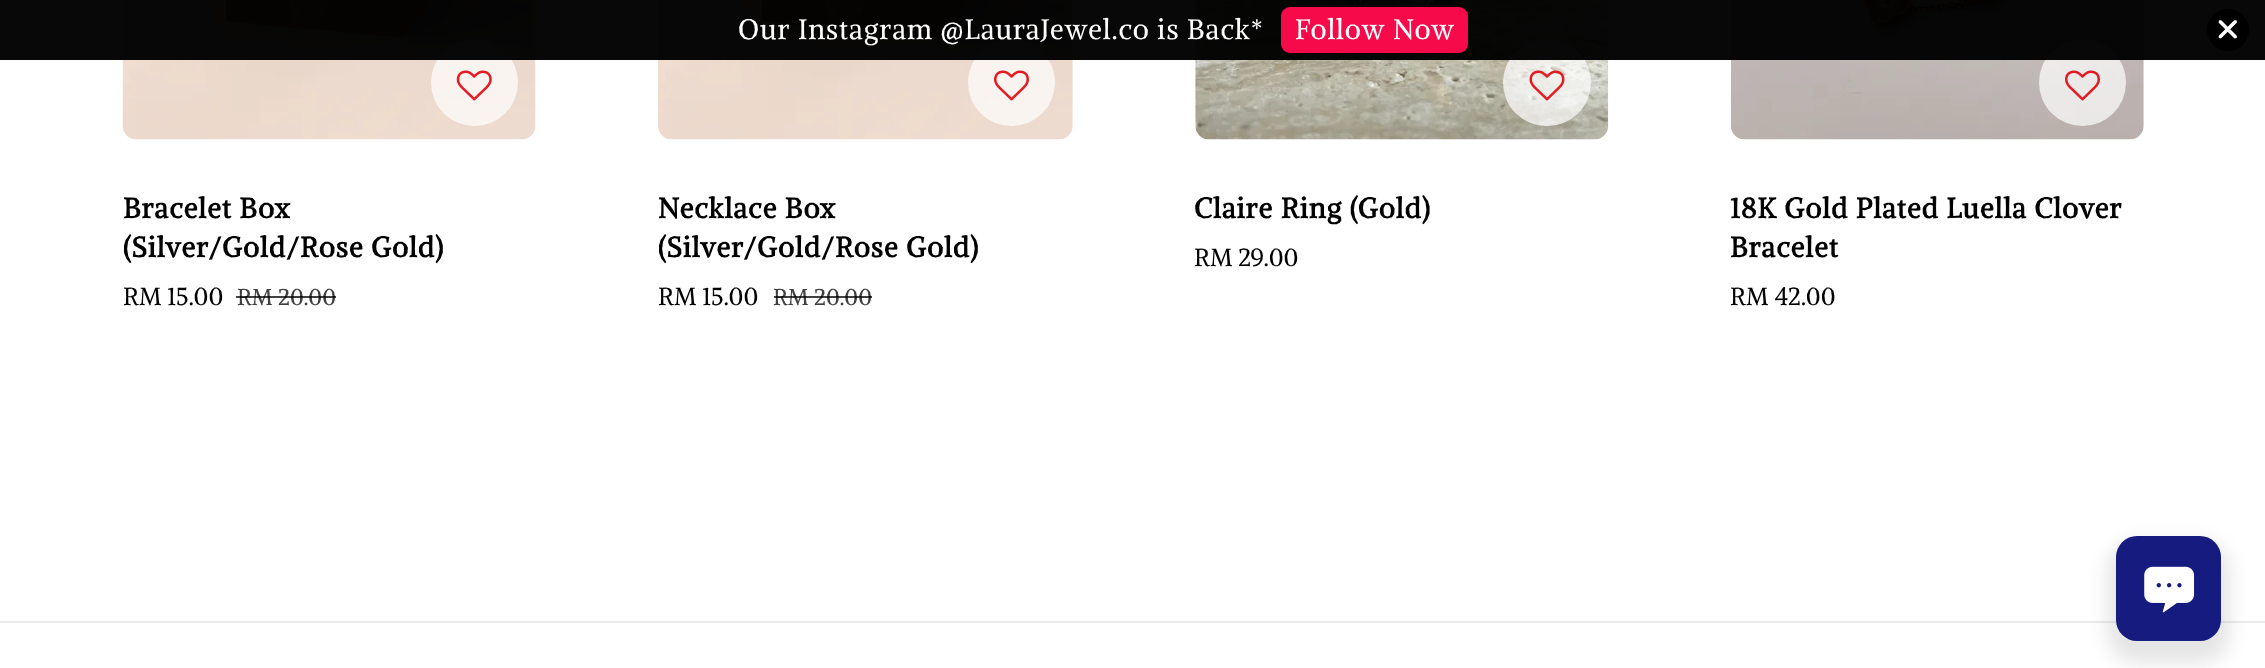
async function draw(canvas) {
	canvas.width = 2265;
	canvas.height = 668;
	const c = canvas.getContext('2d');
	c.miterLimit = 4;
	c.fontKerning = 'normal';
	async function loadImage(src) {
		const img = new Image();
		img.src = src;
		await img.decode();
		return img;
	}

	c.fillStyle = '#fff';
	c.fillRect(0, 0, 2265, 668);
	c.drawImage(await loadImage('img1.png'), 122, 0, 414, 140);
	c.fillStyle = '#ffffffb3';
	c.beginPath();
	c.arc(474.5, 82.5, 43.5, 0, 2 * Math.PI);
	c.fill();
	c.drawImage(await loadImage('img3.png'), 658, 0, 415, 140);
	c.beginPath();
	c.arc(1011.5, 82.5, 43.5, 0, 2 * Math.PI);
	c.fill();
	c.drawImage(await loadImage('img5.png'), 1195, 0, 414, 140);
	c.beginPath();
	c.roundRect(1503, 39, 88, 87, 43.5);
	c.fill();
	c.drawImage(await loadImage('img7.png'), 1730, 0, 414, 140);
	c.beginPath();
	c.arc(2082.5, 82.5, 43.5, 0, 2 * Math.PI);
	c.fill();
	c.fillStyle = '#000000f7';
	c.fillRect(0, 0, 2265, 60);
	c.letterSpacing = '0.9px';
	c.font = '28px Alike Angular';
	c.fillStyle = '#fff';
	c.fillText('Our Instagram @LauraJewel.co is Back*', 738, 39);
	c.fillStyle = '#f60a4a';
	c.beginPath();
	c.roundRect(1281, 7, 187, 46, 9);
	c.fill();
	c.fillStyle = '#fff';
	c.fillText('Follow Now', 1295, 39);
	c.fillStyle = '#000';
	c.beginPath();
	c.arc(2228, 30, 21, 0, 2 * Math.PI);
	c.fill();
	c.fillStyle = '#fff';
	c.beginPath();
	c.moveTo(2236.5, 20.5);
	c.bezierCurveTo(2237, 21.5, 2237, 22.5, 2236.5, 23);
	c.lineTo(2221.5, 38);
	c.bezierCurveTo(2221, 38.5, 2220, 38.5, 2219, 38);
	c.bezierCurveTo(2218.5, 37.5, 2218.5, 36.5, 2219, 35.5);
	c.lineTo(2234, 20.5);
	c.bezierCurveTo(2234.5, 20, 2235.5, 20, 2236.5, 20.5);
	c.closePath();
	c.fill();
	c.beginPath();
	c.moveTo(2219, 20.5);
	c.bezierCurveTo(2220, 20, 2221, 20, 2221.5, 20.5);
	c.lineTo(2236.5, 35.5);
	c.bezierCurveTo(2237, 36.5, 2237, 37.5, 2236.5, 38);
	c.bezierCurveTo(2235.5, 38.5, 2234.5, 38.5, 2234, 38);
	c.lineTo(2219, 23);
	c.bezierCurveTo(2218.5, 22.5, 2218.5, 21.5, 2219, 20.5);
	c.closePath();
	c.fill();
	c.drawImage(await loadImage('img2.png'), 456, 70, 36, 31);
	c.font = 'bold 28px Alike Angular';
	c.fillStyle = '#000';
	c.fillText('Bracelet Box', 123, 218);
	c.fillText('(Silver/Gold/Rose Gold)', 123, 257);
	c.letterSpacing = '0px';
	c.font = '24.5px Alike Angular';
	c.fillText('RM 15.00', 123, 305);
	c.font = '22.75px Alike Angular';
	c.fillStyle = '#404040';
	c.fillText('RM 20.00', 237, 305);
	c.fillStyle = '#000000bf';
	c.fillRect(236, 296, 100, 2);
	c.drawImage(await loadImage('img4.png'), 994, 70, 35, 31);
	c.letterSpacing = '0.9px';
	c.font = 'bold 28px Alike Angular';
	c.fillStyle = '#000';
	c.fillText('Necklace Box', 658, 218);
	c.fillText('(Silver/Gold/Rose Gold)', 658, 257);
	c.letterSpacing = '0px';
	c.font = '24.5px Alike Angular';
	c.fillText('RM 15.00', 658, 305);
	c.font = '22.75px Alike Angular';
	c.fillStyle = '#404040';
	c.fillText('RM 20.00', 773, 305);
	c.fillStyle = '#000000bf';
	c.fillRect(774, 296, 98, 2);
	c.drawImage(await loadImage('img6.png'), 1529, 70, 36, 31);
	c.letterSpacing = '0.9px';
	c.font = 'bold 28px Alike Angular';
	c.fillStyle = '#000';
	c.fillText('Claire Ring (Gold)', 1194, 218);
	c.letterSpacing = '0px';
	c.font = '24.5px Alike Angular';
	c.fillText('RM 29.00', 1194, 266);
	c.drawImage(await loadImage('img8.png'), 2065, 70, 35, 31);
	c.letterSpacing = '0.9px';
	c.font = 'bold 28px Alike Angular';
	c.fillText('18K Gold Plated Luella Clover', 1730, 218);
	c.fillText('Bracelet', 1730, 257);
	c.letterSpacing = '0px';
	c.font = '24.5px Alike Angular';
	c.fillText('RM 42.00', 1730, 305);
	c.fillStyle = '#ebebeb';
	c.fillRect(0, 621, 2265, 2);
	c.fillStyle = '#0000001a';
	c.filter = 'blur(9px)';
	c.beginPath();
	c.roundRect(2107, 541, 123, 122, 30);
	c.fill();
	c.filter = 'none';
	c.fillStyle = '#161b7f';
	c.beginPath();
	c.roundRect(2116, 536, 105, 105, 21);
	c.fill();
	c.drawImage(await loadImage('img9.png'), 2144, 566, 51, 47);
}

draw(document.querySelector('canvas'));
